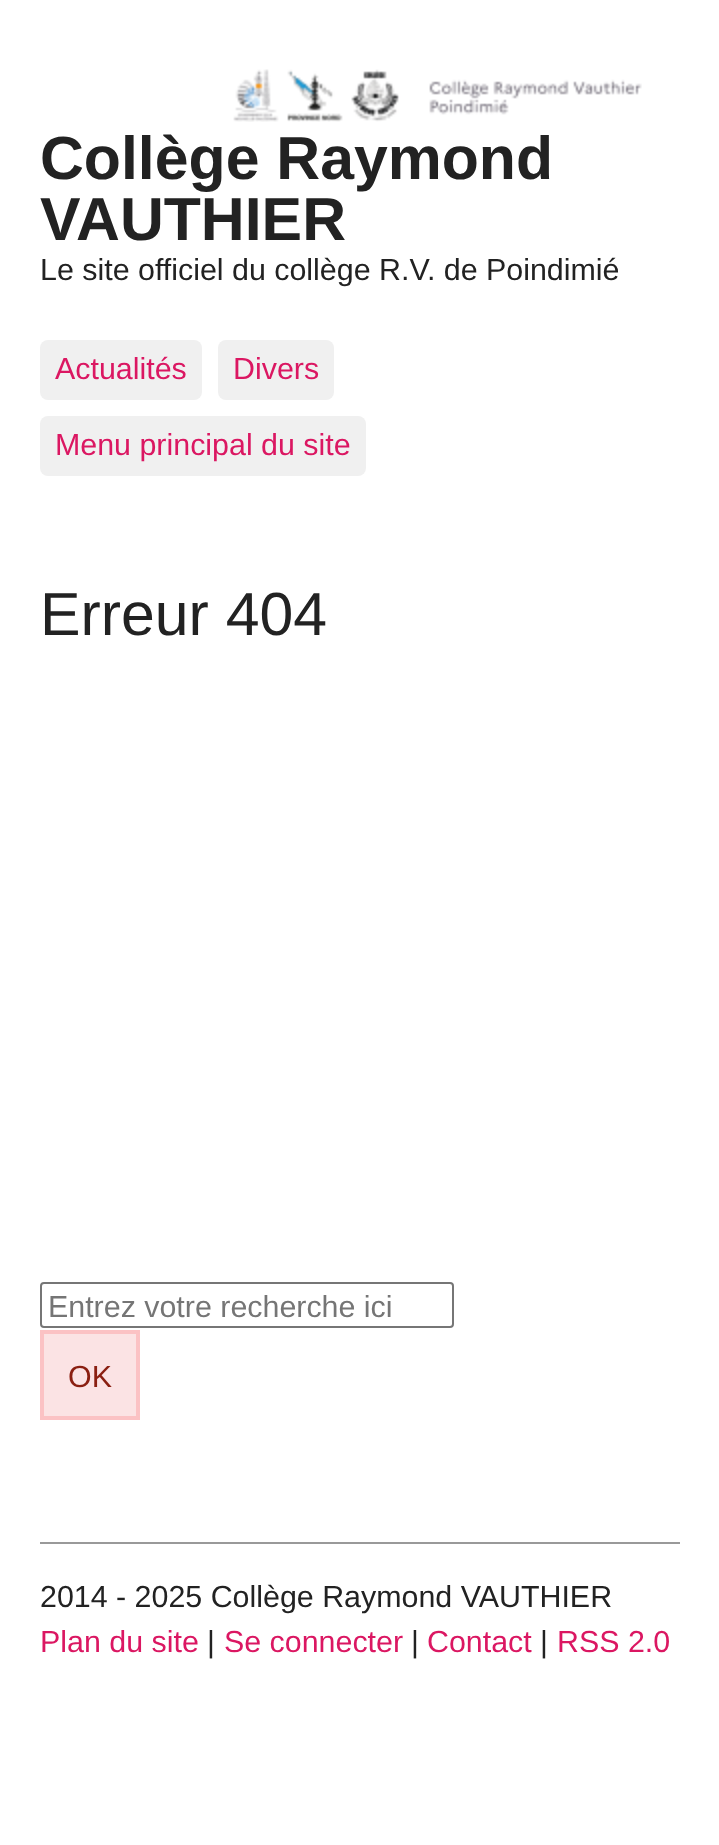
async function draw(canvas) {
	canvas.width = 719;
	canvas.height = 1845;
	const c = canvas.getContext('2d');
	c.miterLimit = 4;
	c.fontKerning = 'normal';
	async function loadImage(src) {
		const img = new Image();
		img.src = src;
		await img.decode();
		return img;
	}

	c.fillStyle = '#fff';
	c.fillRect(0, 0, 719, 1845);
	c.drawImage(await loadImage('img1.png'), 233, 69, 409, 53);
	c.font = 'bold 60.75px Liberation Sans';
	c.fillStyle = '#222';
	c.fillText('Collège Raymond', 40, 179);
	c.fillText('VAUTHIER', 40, 240);
	c.font = '30.4px Liberation Sans';
	c.fillText('Le site officiel du collège R.V. de Poindimié', 40, 280);
	c.fillStyle = '#f0f0f0';
	c.beginPath();
	c.roundRect(40, 340, 162, 60, 8);
	c.fill();
	c.fillStyle = '#db1762';
	c.fillText('Actualités', 55, 379);
	c.fillStyle = '#f0f0f0';
	c.beginPath();
	c.roundRect(218, 340, 116, 60, 8);
	c.fill();
	c.fillStyle = '#db1762';
	c.fillText('Divers', 233, 379);
	c.fillStyle = '#f0f0f0';
	c.beginPath();
	c.roundRect(40, 416, 326, 60, 8);
	c.fill();
	c.fillStyle = '#db1762';
	c.fillText('Menu principal du site', 55, 455);
	c.font = '60.75px Liberation Sans';
	c.fillStyle = '#222';
	c.fillText('Erreur 404', 40, 635);
	c.beginPath();
	c.roundRect(41, 1283, 412, 44, 3);
	c.strokeStyle = '#767676';
	c.lineWidth = 2;
	c.stroke();
	c.font = '30.4px Liberation Sans';
	c.fillStyle = '#757575';
	c.fillText('Entrez votre recherche ici', 48, 1317);
	c.fillStyle = '#fbe3e4';
	c.beginPath();
	c.rect(42, 1332, 96, 86);
	c.fill();
	c.strokeStyle = '#fbc2c4';
	c.lineWidth = 4;
	c.stroke();
	c.fillStyle = '#8a1f11';
	c.fillText('OK', 68, 1387);
	c.fillStyle = '#999';
	c.fillRect(40, 1542, 640, 2);
	c.fillStyle = '#222';
	c.fillText('2014 - 2025 Collège Raymond VAUTHIER', 40, 1607);
	c.fillStyle = '#db1762';
	c.fillText('Plan du site', 40, 1652);
	c.fillStyle = '#222';
	c.fillText('|', 207, 1652);
	c.fillStyle = '#db1762';
	c.fillText('Se connecter', 224, 1652);
	c.fillStyle = '#222';
	c.fillText('|', 411, 1652);
	c.fillStyle = '#db1762';
	c.fillText('Contact', 427, 1652);
	c.fillStyle = '#222';
	c.fillText('|', 540, 1652);
	c.fillStyle = '#db1762';
	c.fillText('RSS 2.0', 557, 1652);
}

draw(document.querySelector('canvas'));
